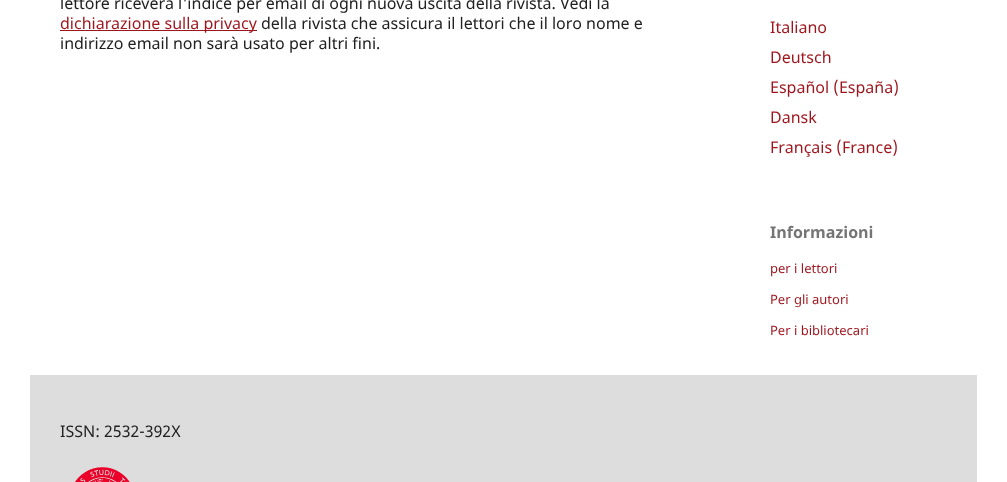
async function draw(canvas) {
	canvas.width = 1007;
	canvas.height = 482;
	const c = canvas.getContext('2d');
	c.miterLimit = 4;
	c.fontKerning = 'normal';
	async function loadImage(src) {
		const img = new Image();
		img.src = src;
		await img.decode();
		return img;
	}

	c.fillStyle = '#fff';
	c.fillRect(0, 0, 1007, 482);
	c.font = '16px Noto Sans';
	c.fillStyle = '#212121';
	c.fillText('lettore riceverà l\'indice per email di ogni nuova uscita della rivista. Vedi la', 60, 9);
	c.fillStyle = '#9e151d';
	c.fillRect(60, 30, 197, 1);
	c.fillText('dichiarazione sulla privacy', 60, 29);
	c.fillStyle = '#212121';
	c.fillText('della rivista che assicura il lettori che il loro nome e', 261, 29);
	c.fillText('indirizzo email non sarà usato per altri fini.', 60, 49);
	c.fillStyle = '#9e151d';
	for (const [text, x, y] of [
		['Italiano', 770, 33],
		['Deutsch', 770, 63],
		['Español (España)', 770, 93],
		['Dansk', 770, 123],
		['Français (France)', 770, 153],
	]) {
		c.fillText(text, x, y);
	}
	c.font = 'bold 16px Noto Sans';
	c.fillStyle = '#757575';
	c.fillText('Informazioni', 770, 238);
	c.font = '13px Noto Sans';
	c.fillStyle = '#9e151d';
	for (const [text, x, y] of [
		['per i lettori', 770, 273],
		['Per gli autori', 770, 304],
		['Per i bibliotecari', 770, 335],
	]) {
		c.fillText(text, x, y);
	}
	c.fillStyle = '#ddd';
	c.fillRect(30, 375, 947, 107);
	c.font = '16px Noto Sans';
	c.fillStyle = '#212121';
	c.fillText('ISSN: 2532-392X', 60, 437);
	c.drawImage(await loadImage('img1.png'), 75, 467, 55, 15);
}

draw(document.querySelector('canvas'));
